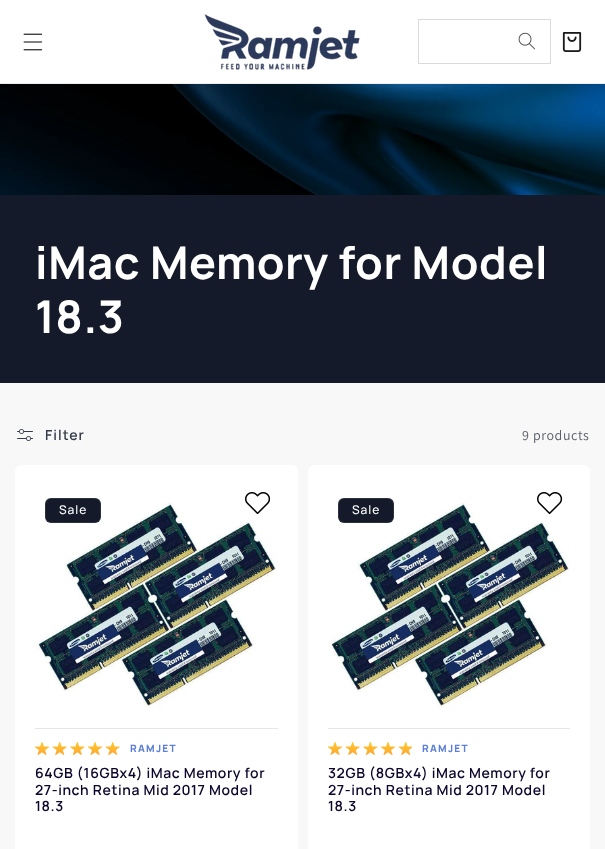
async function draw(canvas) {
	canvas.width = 605;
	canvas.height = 849;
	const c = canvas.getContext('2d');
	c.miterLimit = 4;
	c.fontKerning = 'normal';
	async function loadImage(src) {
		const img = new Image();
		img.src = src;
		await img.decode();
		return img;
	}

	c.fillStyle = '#fff';
	c.fillRect(0, 0, 605, 849);
	c.fillStyle = '#ececec';
	c.fillRect(0, 83, 605, 1);
	c.drawImage(await loadImage('img1.png'), 23, 33, 20, 18);
	c.drawImage(await loadImage('img2.png'), 204, 14, 156, 56);
	c.strokeStyle = '#dbdbdb';
	c.strokeRect(418.5, 19.5, 132, 44);
	c.drawImage(await loadImage('img3.png'), 518, 32, 17, 18);
	c.drawImage(await loadImage('img4.png'), 562, 32, 20, 20);
	c.drawImage(await loadImage('img5.png'), 0, 84, 605, 111);
	c.fillStyle = '#141a29';
	c.fillRect(0, 195, 605, 188);
	c.letterSpacing = '0.6px';
	c.font = 'bold 45px Manrope';
	c.fillStyle = '#fff';
	c.fillText('iMac Memory for Model', 35, 279);
	c.fillText('18.3', 35, 333);
	c.fillStyle = '#f8f8f8';
	c.fillRect(0, 383, 605, 466);
	c.drawImage(await loadImage('img6.png'), 17, 429, 16, 12);
	c.letterSpacing = '1px';
	c.font = '600 14px Manrope';
	c.fillStyle = '#363b48';
	c.fillText('Filter', 45, 440);
	c.letterSpacing = '0.6px';
	c.font = '14px Assistant';
	c.fillStyle = '#585d67';
	c.fillText('9 products', 522, 440);
	c.fillStyle = '#fff';
	c.beginPath();
	c.roundRect(15, 465, 283, 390, 6);
	c.fill();
	c.drawImage(await loadImage('img7.png'), 35, 485, 243, 243);
	c.fillStyle = '#141a29';
	c.beginPath();
	c.roundRect(45, 498, 56, 25, 6);
	c.fill();
	c.beginPath();
	c.roundRect(45.5, 498.5, 55, 24, 5.5);
	c.strokeStyle = '#ffffff1a';
	c.stroke();
	c.letterSpacing = '1px';
	c.font = '500 12px Manrope';
	c.fillStyle = '#fff';
	c.fillText('Sale', 59, 514);
	c.drawImage(await loadImage('img8.png'), 245, 492, 25, 22);
	c.fillStyle = '#e5e5e5';
	c.fillRect(35, 728, 243, 1);
	c.drawImage(await loadImage('img9.png'), 35, 742, 85, 13);
	c.letterSpacing = '1.25px';
	c.font = '800 10px Manrope';
	c.fillStyle = '#5b7fda';
	c.fillText('RAMJET', 130, 752);
	c.letterSpacing = '0.6px';
	c.font = '600 14px Manrope';
	c.fillStyle = '#0e052d';
	for (const [text, x, y] of [
		['64GB (16GBx4) iMac Memory for', 35, 778],
		['27-inch Retina Mid 2017 Model', 35, 795],
		['18.3', 35, 811],
	]) {
		c.fillText(text, x, y);
	}
	c.fillStyle = '#fff';
	c.beginPath();
	c.roundRect(308, 465, 282, 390, 6);
	c.fill();
	c.drawImage(await loadImage('img7.png'), 328, 485, 243, 243);
	c.fillStyle = '#141a29';
	c.beginPath();
	c.roundRect(338, 498, 56, 25, 6);
	c.fill();
	c.beginPath();
	c.roundRect(338.5, 498.5, 55, 24, 5.5);
	c.stroke();
	c.letterSpacing = '1px';
	c.font = '500 12px Manrope';
	c.fillStyle = '#fff';
	c.fillText('Sale', 352, 514);
	c.drawImage(await loadImage('img10.png'), 537, 492, 26, 22);
	c.fillStyle = '#e5e5e5';
	c.fillRect(328, 728, 242, 1);
	c.drawImage(await loadImage('img11.png'), 328, 742, 84, 13);
	c.letterSpacing = '1.25px';
	c.font = '800 10px Manrope';
	c.fillStyle = '#5b7fda';
	c.fillText('RAMJET', 422, 752);
	c.letterSpacing = '0.6px';
	c.font = '600 14px Manrope';
	c.fillStyle = '#0e052d';
	for (const [text, x, y] of [
		['32GB (8GBx4) iMac Memory for', 328, 778],
		['27-inch Retina Mid 2017 Model', 328, 795],
		['18.3', 328, 811],
	]) {
		c.fillText(text, x, y);
	}
}

draw(document.querySelector('canvas'));
